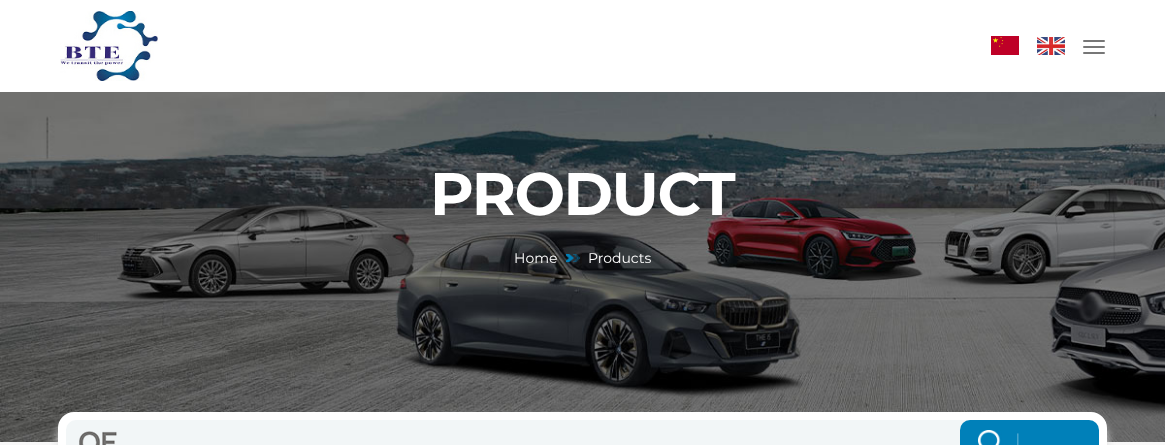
async function draw(canvas) {
	canvas.width = 1165;
	canvas.height = 445;
	const c = canvas.getContext('2d');
	c.miterLimit = 4;
	c.fontKerning = 'normal';
	async function loadImage(src) {
		const img = new Image();
		img.src = src;
		await img.decode();
		return img;
	}

	c.fillStyle = '#f8f8f8';
	c.fillRect(0, 0, 1165, 445);
	c.fillStyle = '#fff';
	c.fillRect(0, 0, 1165, 92);
	c.drawImage(await loadImage('img1.png'), 60, 11, 98, 70);
	c.drawImage(await loadImage('img2.png'), 991, 36, 28, 19);
	c.drawImage(await loadImage('img3.png'), 1037, 37, 28, 18);
	c.fillStyle = '#777';
	c.beginPath();
	c.roundRect(1083, 40, 11, 2, [1, 0, 0, 1]);
	c.fill();
	c.beginPath();
	c.roundRect(1094, 40, 11, 2, [0, 1, 1, 0]);
	c.fill();
	c.beginPath();
	c.roundRect(1083, 46, 11, 2, [1, 0, 0, 1]);
	c.fill();
	c.beginPath();
	c.roundRect(1094, 46, 11, 2, [0, 1, 1, 0]);
	c.fill();
	c.beginPath();
	c.roundRect(1083, 52, 11, 2, [1, 0, 0, 1]);
	c.fill();
	c.beginPath();
	c.roundRect(1094, 52, 11, 2, [0, 1, 1, 0]);
	c.fill();
	c.drawImage(await loadImage('img4.png'), 0, 92, 1165, 350);
	c.letterSpacing = '-1.5px';
	c.font = 'bold 60px Montserrat';
	c.fillStyle = '#fff';
	c.fillText('PRODUCT', 430, 215);
	c.letterSpacing = '0px';
	c.font = '14px Montserrat';
	c.fillText('Home', 514, 263);
	c.drawImage(await loadImage('img5.png'), 566, 254, 14, 9);
	c.fillText('Products', 588, 263);
	c.fillStyle = '#ddd';
	c.filter = 'blur(5px)';
	c.beginPath();
	c.roundRect(58, 422, 1049, 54, 16);
	c.fill();
	c.filter = 'none';
	c.fillStyle = '#fff';
	c.beginPath();
	c.roundRect(62, 416, 1041, 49, 12);
	c.fill();
	c.strokeStyle = '#fff';
	c.lineWidth = 8;
	c.stroke();
	c.fillStyle = '#f2f6f7';
	c.beginPath();
	c.roundRect(66, 420, 1033, 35, 10);
	c.fill();
	c.drawImage(await loadImage('img6.png'), 79, 431, 38, 14);
	c.fillStyle = '#0080b9';
	c.beginPath();
	c.roundRect(960, 420, 139, 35, 10);
	c.fill();
	c.drawImage(await loadImage('img7.png'), 978, 430, 41, 15);
}

draw(document.querySelector('canvas'));
